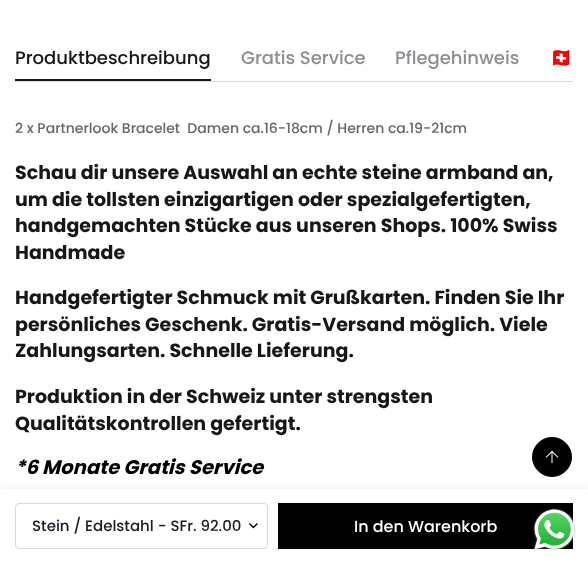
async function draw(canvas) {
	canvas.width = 588;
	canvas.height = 563;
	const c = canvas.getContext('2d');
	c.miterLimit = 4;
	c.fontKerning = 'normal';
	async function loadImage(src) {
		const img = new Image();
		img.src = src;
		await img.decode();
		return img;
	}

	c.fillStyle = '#fff';
	c.fillRect(0, 0, 588, 563);
	c.fillStyle = '#d9d9d9';
	c.fillRect(15, 81, 558, 1);
	c.font = '500 18px Poppins';
	c.fillStyle = '#171717';
	c.fillText('Produktbeschreibung', 15, 64);
	c.fillRect(15, 79, 196, 2);
	c.fillStyle = '#8b8e92';
	c.fillText('Gratis Service', 241, 64);
	c.fillText('Pflegehinweis', 395, 64);
	c.font = '18px Noto Color Emoji';
	c.fillText('🇨🇭', 550, 64);
	c.font = '500 14px Poppins';
	c.fillStyle = '#666';
	c.fillText('2 x Partnerlook Bracelet  Damen ca.16-18cm / Herren ca.19-21cm', 15, 133);
	c.font = 'bold 19px Poppins';
	c.fillStyle = '#171717';
	for (const [text, x, y] of [
		['Schau dir unsere Auswahl an echte steine armband an,', 15, 179],
		['um die tollsten einzigartigen oder spezialgefertigten,', 15, 206],
		['handgemachten Stücke aus unseren Shops. 100% Swiss', 15, 232],
		['Handmade', 15, 259],
		['Handgefertigter Schmuck mit Grußkarten. Finden Sie Ihr', 15, 304],
		['persönliches Geschenk. Gratis-Versand möglich. Viele', 15, 331],
		['Zahlungsarten. Schnelle Lieferung.', 15, 357],
		['Produktion in der Schweiz unter strengsten', 15, 403],
		['Qualitätskontrollen gefertigt.', 15, 430],
	]) {
		c.fillText(text, x, y);
	}
	c.font = 'italic bold 19.6px Poppins';
	c.fillStyle = '#000';
	c.fillText('*6 Monate Gratis Service', 15, 474);
	c.fillStyle = '#00000017';
	c.filter = 'blur(5px)';
	c.beginPath();
	c.rect(0, 489, 588, 74);
	c.fill();
	c.filter = 'none';
	c.fillStyle = '#fff';
	c.fillRect(0, 489, 588, 74);
	c.drawImage(await loadImage('img1.png'), 249, 523, 9, 6);
	c.beginPath();
	c.roundRect(15.5, 503.5, 252, 45, 3.5);
	c.strokeStyle = '#d9d9d9';
	c.stroke();
	c.font = '500 15px Poppins';
	c.fillStyle = '#161d25';
	c.fillText('Stein / Edelstahl - SFr. 92.00', 32, 531);
	c.fillStyle = '#000';
	c.fillRect(278, 503, 295, 46);
	c.font = '500 16px Poppins';
	c.fillStyle = '#fff';
	c.fillText('In den Warenkorb', 354, 532);
	c.fillStyle = '#000';
	c.beginPath();
	c.arc(552, 457, 19.5, 0, 2 * Math.PI);
	c.fill();
	c.strokeStyle = '#000';
	c.stroke();
	c.drawImage(await loadImage('img2.png'), 545, 450, 14, 14);
	c.drawImage(await loadImage('img3.png'), 533, 508, 43, 43);
}

draw(document.querySelector('canvas'));
